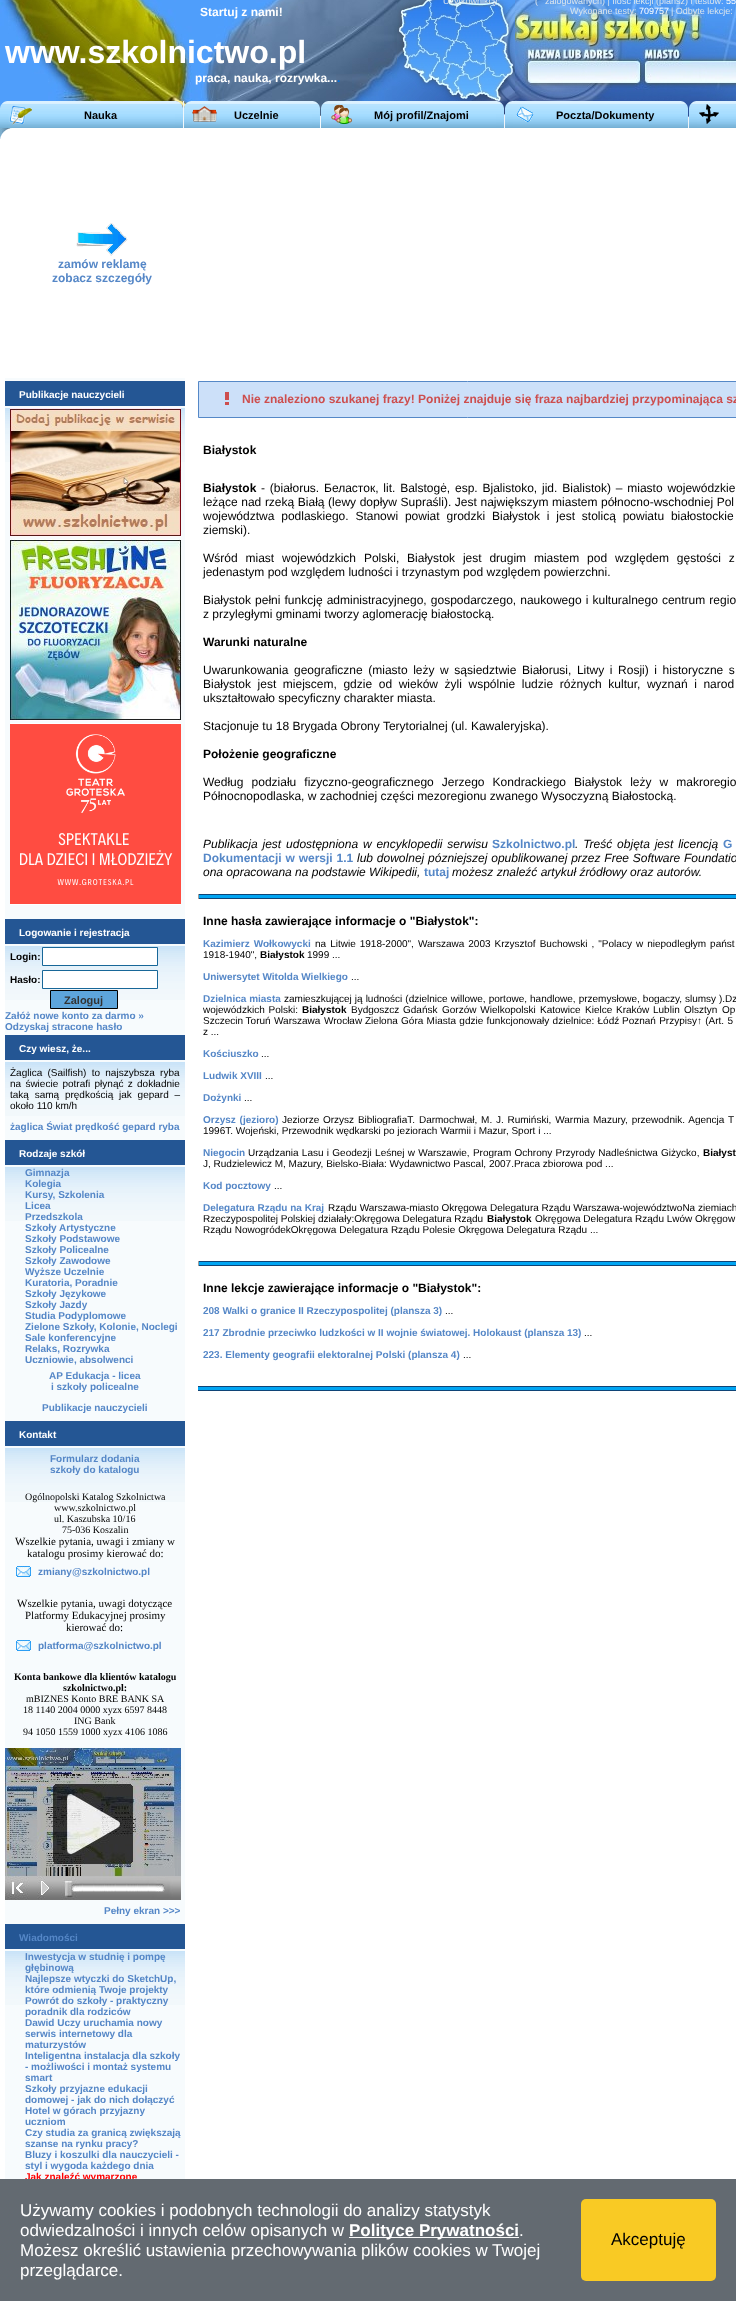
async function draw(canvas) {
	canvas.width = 736;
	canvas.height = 2301;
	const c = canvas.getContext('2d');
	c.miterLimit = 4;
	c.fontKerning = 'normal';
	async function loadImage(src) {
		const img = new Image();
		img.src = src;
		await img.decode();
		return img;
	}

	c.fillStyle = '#fff';
	c.fillRect(0, 0, 736, 2301);
	c.drawImage(await loadImage('img3.png'), 397, 0, 118, 101);
	c.font = '9px Liberation Sans';
	c.fillStyle = '#dbe5ed';
	c.fillText('Użytkownikcy:', 443, 4);
	c.drawImage(await loadImage('img2.png'), 515, 0, 221, 101);
	c.fillText('(', 535, 4);
	c.fillText('zalogowanych) | Ilość lekcji (plansz) i testów:', 545, 4);
	c.fillStyle = '#fff';
	c.fillText('55', 726, 4);
	c.fillStyle = '#dbe5ed';
	c.fillText('Wykonane testy:', 570, 14);
	c.fillStyle = '#fff';
	c.fillText('709757', 639, 14);
	c.fillStyle = '#dbe5ed';
	c.fillText('| Odbyte lekcje:', 671, 14);
	c.drawImage(await loadImage('img1.png'), 0, 0, 397, 101);
	c.font = 'bold 12px Liberation Sans';
	c.fillStyle = '#fff';
	c.fillText('Startuj z nami!', 200, 16);
	c.font = 'bold 32px Liberation Sans';
	c.fillText('www.szkolnictwo.pl', 5, 63);
	c.font = 'bold 12px Liberation Sans';
	c.fillText('praca, nauka, rozrywka...', 195, 82);
	c.fillStyle = '#0071e1';
	c.fillText('.', 337, 82);
	c.drawImage(await loadImage('img4.png'), 0, 101, 696, 27);
	c.drawImage(await loadImage('img5.png'), 0, 101, 8, 27);
	c.drawImage(await loadImage('img6.png'), 8, 101, 167, 27);
	c.drawImage(await loadImage('img7.png'), 9, 105, 23, 20);
	c.font = 'bold 11px Liberation Sans';
	c.fillStyle = '#000';
	c.fillText('Nauka', 84, 119);
	c.drawImage(await loadImage('img8.png'), 175, 101, 9, 27);
	c.drawImage(await loadImage('img9.png'), 184, 101, 8, 27);
	c.drawImage(await loadImage('img10.png'), 192, 101, 120, 27);
	c.drawImage(await loadImage('img11.png'), 192, 106, 25, 16);
	c.fillText('Uczelnie', 234, 119);
	c.drawImage(await loadImage('img12.png'), 312, 101, 8, 27);
	c.drawImage(await loadImage('img13.png'), 321, 101, 8, 27);
	c.drawImage(await loadImage('img6.png'), 329, 101, 167, 27);
	c.drawImage(await loadImage('img14.png'), 331, 104, 22, 21);
	c.fillText('Mój profil/Znajomi', 374, 119);
	c.drawImage(await loadImage('img15.png'), 496, 101, 8, 27);
	c.drawImage(await loadImage('img16.png'), 505, 101, 8, 27);
	c.drawImage(await loadImage('img6.png'), 513, 101, 167, 27);
	c.drawImage(await loadImage('img17.png'), 516, 106, 18, 16);
	c.fillText('Poczta/Dokumenty', 556, 119);
	c.drawImage(await loadImage('img18.png'), 680, 101, 8, 27);
	c.drawImage(await loadImage('img19.png'), 689, 101, 8, 27);
	c.drawImage(await loadImage('img20.png'), 697, 101, 39, 27);
	c.drawImage(await loadImage('img21.png'), 699, 104, 20, 20);
	c.drawImage(await loadImage('img22.png'), 0, 128, 12, 11);
	c.drawImage(await loadImage('img23.png'), 76, 223, 52, 33);
	c.font = 'bold 12px Liberation Sans';
	c.fillStyle = '#5587c7';
	c.fillText('zamów reklamę', 58, 268);
	c.fillText('zobacz szczegóły', 52, 282);
	c.fillStyle = '#f7fbfd';
	c.fillRect(5, 378, 180, 1801);
	c.fillStyle = '#245694';
	c.fillRect(5, 381, 180, 25);
	c.font = 'bold 10px Liberation Sans';
	c.fillStyle = '#fff';
	c.fillText('Publikacje nauczycieli', 19, 398);
	c.drawImage(await loadImage('img24.png'), 5, 408, 180, 54);
	c.drawImage(await loadImage('img25.png'), 10, 408, 171, 129);
	c.drawImage(await loadImage('img26.png'), 10, 539, 171, 182);
	c.drawImage(await loadImage('img27.png'), 10, 723, 171, 182);
	c.fillStyle = '#245694';
	c.fillRect(5, 919, 180, 25);
	c.fillStyle = '#fff';
	c.fillText('Logowanie i rejestracja', 19, 936);
	c.drawImage(await loadImage('img24.png'), 5, 946, 180, 54);
	c.fillStyle = '#000';
	c.fillText('Login:', 10, 960);
	c.fillStyle = '#fff';
	c.beginPath();
	c.rect(42.5, 947.5, 115, 18);
	c.fill();
	c.strokeStyle = '#186798';
	c.stroke();
	c.fillStyle = '#000';
	c.fillText('Hasło:', 10, 983);
	c.fillStyle = '#fff';
	c.beginPath();
	c.rect(42.5, 970.5, 115, 18);
	c.fill();
	c.stroke();
	c.fillStyle = '#5da5dc';
	c.beginPath();
	c.rect(50.5, 990.5, 67, 18);
	c.fill();
	c.strokeStyle = '#000';
	c.stroke();
	c.font = 'bold 11px Liberation Sans';
	c.fillStyle = '#333';
	c.fillText('Zaloguj', 64, 1004);
	c.font = 'bold 10px Liberation Sans';
	c.fillStyle = '#5587c7';
	c.fillText('Załóż nowe konto za darmo »', 5, 1019);
	c.fillText('Odzyskaj stracone hasło', 5, 1030);
	c.fillStyle = '#245694';
	c.fillRect(5, 1035, 180, 25);
	c.fillStyle = '#fff';
	c.fillText('Czy wiesz, że...', 19, 1052);
	c.drawImage(await loadImage('img24.png'), 5, 1062, 180, 54);
	c.wordSpacing = '2.5px';
	c.font = '10px Liberation Sans';
	c.fillStyle = '#000';
	c.fillText('Żaglica (Sailfish) to najszybsza ryba', 10, 1076);
	c.wordSpacing = '1.5px';
	c.fillText('na świecie potrafi płynąć z dokładnie', 10, 1087);
	c.wordSpacing = '3px';
	c.fillText('taką samą prędkością jak gepard –', 10, 1098);
	c.wordSpacing = '0px';
	c.fillText('około 110 km/h', 10, 1109);
	c.font = 'bold 10px Liberation Sans';
	c.fillStyle = '#5587c7';
	c.fillText('żaglica Świat prędkość gepard ryba', 10, 1130);
	c.fillStyle = '#245694';
	c.fillRect(5, 1140, 180, 25);
	c.fillStyle = '#fff';
	c.fillText('Rodzaje szkół', 19, 1157);
	c.drawImage(await loadImage('img24.png'), 5, 1167, 180, 54);
	c.fillStyle = '#5587c7';
	for (const [text, x, y] of [
		['Gimnazja', 25, 1176],
		['Kolegia', 25, 1187],
		['Kursy, Szkolenia', 25, 1198],
		['Licea', 25, 1209],
		['Przedszkola', 25, 1220],
		['Szkoły Artystyczne', 25, 1231],
		['Szkoły Podstawowe', 25, 1242],
		['Szkoły Policealne', 25, 1253],
		['Szkoły Zawodowe', 25, 1264],
		['Wyższe Uczelnie', 25, 1275],
		['Kuratoria, Poradnie', 25, 1286],
		['Szkoły Językowe', 25, 1297],
		['Szkoły Jazdy', 25, 1308],
		['Studia Podyplomowe', 25, 1319],
		['Zielone Szkoły, Kolonie, Noclegi', 25, 1330],
		['Sale konferencyjne', 25, 1341],
		['Relaks, Rozrywka', 25, 1352],
		['Uczniowie, absolwenci', 25, 1363],
		['AP Edukacja - licea', 49, 1379],
		['i szkoły policealne', 51, 1390],
		['Publikacje nauczycieli', 42, 1411],
	]) {
		c.fillText(text, x, y);
	}
	c.fillStyle = '#245694';
	c.fillRect(5, 1421, 180, 25);
	c.fillStyle = '#fff';
	c.fillText('Kontakt', 19, 1438);
	c.drawImage(await loadImage('img24.png'), 5, 1448, 180, 54);
	c.fillStyle = '#5587c7';
	c.fillText('Formularz dodania', 50, 1462);
	c.fillText('szkoły do katalogu', 50, 1473);
	c.font = '10px Liberation Serif';
	c.fillStyle = '#000';
	for (const [text, x, y] of [
		['Ogólnopolski Katalog Szkolnictwa', 25, 1500],
		['www.szkolnictwo.pl', 54, 1511],
		['ul. Kaszubska 10/16', 54, 1522],
		['75-036 Koszalin', 62, 1533],
	]) {
		c.fillText(text, x, y);
	}
	c.font = '11px Liberation Serif';
	c.fillText('Wszelkie pytania, uwagi i zmiany w', 15, 1545);
	c.fillText('katalogu prosimy kierować do:', 27, 1557);
	c.drawImage(await loadImage('img28.png'), 16, 1566, 15, 11);
	c.font = 'bold 10px Liberation Sans';
	c.fillStyle = '#5587c7';
	c.fillText('zmiany@szkolnictwo.pl', 38, 1575);
	c.font = '11px Liberation Serif';
	c.fillStyle = '#000';
	for (const [text, x, y] of [
		['Wszelkie pytania, uwagi dotyczące', 17, 1607],
		['Platformy Edukacyjnej prosimy', 25, 1619],
		['kierować do:', 66, 1631],
	]) {
		c.fillText(text, x, y);
	}
	c.drawImage(await loadImage('img28.png'), 16, 1640, 15, 11);
	c.font = 'bold 10px Liberation Sans';
	c.fillStyle = '#5587c7';
	c.fillText('platforma@szkolnictwo.pl', 38, 1649);
	c.font = 'bold 10px Liberation Serif';
	c.fillStyle = '#000';
	c.fillText('Konta bankowe dla klientów katalogu', 14, 1680);
	c.fillText('szkolnictwo.pl:', 63, 1691);
	c.font = '10px Liberation Serif';
	for (const [text, x, y] of [
		['mBIZNES Konto BRE BANK SA', 26, 1702],
		['18 1140 2004 0000 xyzx 6597 8448', 23, 1713],
		['ING Bank', 74, 1724],
		['94 1050 1559 1000 xyzx 4106 1086', 23, 1735],
	]) {
		c.fillText(text, x, y);
	}
	c.drawImage(await loadImage('img29.png'), 5, 1748, 176, 152);
	c.font = 'bold 10px Liberation Sans';
	c.fillStyle = '#5587c7';
	c.fillText('Pełny ekran >>>', 104, 1914);
	c.fillStyle = '#245694';
	c.fillRect(5, 1924, 180, 25);
	c.fillStyle = '#5587c7';
	c.fillText('Wiadomości', 19, 1941);
	c.drawImage(await loadImage('img24.png'), 5, 1951, 180, 54);
	for (const [text, x, y] of [
		['Inwestycja w studnię i pompę', 25, 1960],
		['głębinową', 25, 1971],
		['Najlepsze wtyczki do SketchUp,', 25, 1982],
		['które odmienią Twoje projekty', 25, 1993],
		['Powrót do szkoły - praktyczny', 25, 2004],
		['poradnik dla rodziców', 25, 2015],
		['Dawid Uczy uruchamia nowy', 25, 2026],
		['serwis internetowy dla', 25, 2037],
		['maturzystów', 25, 2048],
		['Inteligentna instalacja dla szkoły', 25, 2059],
		['- możliwości i montaż systemu', 25, 2070],
		['smart', 25, 2081],
		['Szkoły przyjazne edukacji', 25, 2092],
		['domowej - jak do nich dołączyć', 25, 2103],
		['Hotel w górach przyjazny', 25, 2114],
		['uczniom', 25, 2125],
		['Czy studia za granicą zwiększają', 25, 2136],
		['szanse na rynku pracy?', 25, 2147],
		['Bluzy i koszulki dla nauczycieli -', 25, 2158],
		['styl i wygoda każdego dnia', 25, 2169],
	]) {
		c.fillText(text, x, y);
	}
	c.fillStyle = '#f00';
	c.fillText('Jak znaleźć wymarzone', 25, 2180);
	c.fillStyle = '#cce0f9';
	c.beginPath();
	c.rect(198.5, 381.5, 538, 36);
	c.fill();
	c.strokeStyle = '#5588c7';
	c.stroke();
	c.drawImage(await loadImage('img30.png'), 225, 392, 4, 13);
	c.font = 'bold 12px Liberation Sans';
	c.fillStyle = '#cd4e4e';
	c.fillText('Nie znaleziono szukanej frazy! Poniżej znajduje się fraza najbardziej przypominająca sz', 242, 403);
	c.fillStyle = '#000';
	c.fillText('Białystok', 203, 454);
	c.fillText('Białystok', 203, 492);
	c.wordSpacing = '1.5px';
	c.font = '12px Liberation Sans';
	c.fillText('- (białorus. Беласток, lit. Balstogė, esp. Bjalistoko, jid. Bialistok) – miasto wojewódzkie', 261, 492);
	c.wordSpacing = '0.25px';
	c.fillText('leżące nad rzeką Białą (lewy dopływ Supraśli). Jest największym miastem północno-wschodniej Pol', 203, 506);
	c.wordSpacing = '3.5px';
	c.fillText('województwa podlaskiego. Stanowi powiat grodzki Białystok i jest stolicą powiatu białostockie', 203, 520);
	c.wordSpacing = '0px';
	c.fillText('ziemski).', 203, 534);
	c.wordSpacing = '4.5px';
	c.fillText('Wśród miast wojewódzkich Polski, Białystok jest drugim miastem pod względem gęstości z', 203, 562);
	c.wordSpacing = '0px';
	c.fillText('jedenastym pod względem ludności i trzynastym pod względem powierzchni.', 203, 576);
	c.wordSpacing = '0.75px';
	c.fillText('Białystok pełni funkcję administracyjnego, gospodarczego, naukowego i kulturalnego centrum regio', 203, 604);
	c.wordSpacing = '0px';
	c.fillText('z przyległymi gminami tworzy aglomerację białostocką.', 203, 618);
	c.font = 'bold 12px Liberation Sans';
	c.fillText('Warunki naturalne', 203, 646);
	c.wordSpacing = '2.25px';
	c.font = '12px Liberation Sans';
	c.fillText('Uwarunkowania geograficzne (miasto leży w sąsiedztwie Białorusi, Litwy i Rosji) i historyczne s', 203, 674);
	c.wordSpacing = '3.25px';
	c.fillText('Białystok jest miejscem, gdzie od wieków żyli wspólnie ludzie różnych kultur, wyznań i narod', 203, 688);
	c.wordSpacing = '0px';
	c.fillText('ukształtowało specyficzny charakter miasta.', 203, 702);
	c.fillText('Stacjonuje tu 18 Brygada Obrony Terytorialnej (ul. Kawaleryjska).', 203, 730);
	c.font = 'bold 12px Liberation Sans';
	c.fillText('Położenie geograficzne', 203, 758);
	c.wordSpacing = '4.75px';
	c.font = '12px Liberation Sans';
	c.fillText('Według podziału fizyczno-geograficznego Jerzego Kondrackiego Białystok leży w makroregio', 203, 786);
	c.wordSpacing = '0px';
	c.fillText('Północnopodlaska, w zachodniej części mezoregionu zwanego Wysoczyzną Białostocką.', 203, 800);
	c.wordSpacing = '1.5px';
	c.font = 'italic 12px Liberation Sans';
	c.fillText('Publikacja jest udostępniona w encyklopedii serwisu', 203, 848);
	c.wordSpacing = '0px';
	c.font = 'bold 12px Liberation Sans';
	c.fillStyle = '#5587c7';
	c.fillText('Szkolnictwo.pl', 492, 848);
	c.wordSpacing = '1.5px';
	c.font = 'italic 12px Liberation Sans';
	c.fillStyle = '#000';
	c.fillText('. Treść objęta jest licencją', 575, 848);
	c.wordSpacing = '1px';
	c.font = 'bold 12px Liberation Sans';
	c.fillStyle = '#5587c7';
	c.fillText('G', 723, 848);
	c.wordSpacing = '0.5px';
	c.fillText('Dokumentacji w wersji 1.1', 203, 862);
	c.font = 'italic 12px Liberation Sans';
	c.fillStyle = '#000';
	c.fillText('lub dowolnej pózniejszej opublikowanej przez Free Software Foundatio', 357, 862);
	c.wordSpacing = '0px';
	c.fillText('ona opracowana na podstawie Wikipedii,', 203, 876);
	c.font = 'bold 12px Liberation Sans';
	c.fillStyle = '#5587c7';
	c.fillText('tutaj', 424, 876);
	c.font = 'italic 12px Liberation Sans';
	c.fillStyle = '#000';
	c.fillText('możesz znaleźć artykuł źródłowy oraz autorów.', 452, 876);
	for (const [x, y, w, h, color] of [
		[198, 895, 538, 3, '#00a5f3'],
		[198, 894, 538, 1, '#104476'],
		[198, 898, 538, 1, '#104476'],
		[198, 894, 1, 5, '#9f9f9f'],
	]) {
		c.fillStyle = color;
		c.fillRect(x, y, w, h);
	}
	c.font = 'bold 12px Liberation Sans';
	c.fillStyle = '#000';
	c.fillText('Inne hasła zawierające informacje o "Białystok":', 203, 925);
	c.wordSpacing = '1.25px';
	c.font = 'bold 10px Liberation Sans';
	c.fillStyle = '#5587c7';
	c.fillText('Kazimierz Wołkowycki', 203, 947);
	c.font = '10px Liberation Sans';
	c.fillStyle = '#000';
	c.fillText('na Litwie 1918-2000", Warszawa 2003 Krzysztof Buchowski , "Polacy w niepodległym państ', 315, 947);
	c.wordSpacing = '0px';
	c.fillText('1918-1940",', 203, 958);
	c.font = 'bold 10px Liberation Sans';
	c.fillText('Białystok', 260, 958);
	c.font = '10px Liberation Sans';
	c.fillText('1999 ...', 307, 958);
	c.font = 'bold 10px Liberation Sans';
	c.fillStyle = '#5587c7';
	c.fillText('Uniwersytet Witolda Wielkiego', 203, 980);
	c.font = '10px Liberation Sans';
	c.fillStyle = '#000';
	c.fillText('...', 351, 980);
	c.font = 'bold 10px Liberation Sans';
	c.fillStyle = '#5587c7';
	c.fillText('Dzielnica miasta', 203, 1002);
	c.wordSpacing = '0.25px';
	c.font = '10px Liberation Sans';
	c.fillStyle = '#000';
	c.fillText('zamieszkującej ją ludności (dzielnice willowe, portowe, handlowe, przemysłowe, bogaczy,', 284, 1002);
	c.wordSpacing = '0px';
	c.fillText('slumsy ).Dz', 685, 1002);
	c.wordSpacing = '1px';
	c.fillText('wojewódzkich Polski:', 203, 1013);
	c.wordSpacing = '0px';
	c.font = 'bold 10px Liberation Sans';
	c.fillText('Białystok', 302, 1013);
	c.font = '10px Liberation Sans';
	c.fillText('Bydgoszcz', 351, 1013);
	c.fillText('Gdańsk', 403, 1013);
	c.wordSpacing = '1px';
	c.fillText('Gorzów Wielkopolski', 442, 1013);
	c.wordSpacing = '0px';
	for (const [text, x, y] of [
		['Katowice', 540, 1013],
		['Kielce', 585, 1013],
		['Kraków', 616, 1013],
		['Lublin', 653, 1013],
		['Olsztyn', 684, 1013],
		['Op', 722, 1013],
		['Szczecin Toruń', 203, 1024],
		['Warszawa', 274, 1024],
		['Wrocław', 324, 1024],
	]) {
		c.fillText(text, x, y);
	}
	c.wordSpacing = '0.5px';
	c.fillText('Zielona Góra Miasta gdzie funkcjonowały dzielnice: Łódź', 365, 1024);
	c.fillText('Poznań Przypisy↑ (Art. 5', 622, 1024);
	c.wordSpacing = '0px';
	c.fillText('z ...', 203, 1035);
	c.font = 'bold 10px Liberation Sans';
	c.fillStyle = '#5587c7';
	c.fillText('Kościuszko', 203, 1057);
	c.font = '10px Liberation Sans';
	c.fillStyle = '#000';
	c.fillText('...', 261, 1057);
	c.font = 'bold 10px Liberation Sans';
	c.fillStyle = '#5587c7';
	c.fillText('Ludwik XVIII', 203, 1079);
	c.font = '10px Liberation Sans';
	c.fillStyle = '#000';
	c.fillText('...', 265, 1079);
	c.font = 'bold 10px Liberation Sans';
	c.fillStyle = '#5587c7';
	c.fillText('Dożynki', 203, 1101);
	c.font = '10px Liberation Sans';
	c.fillStyle = '#000';
	c.fillText('...', 244, 1101);
	c.wordSpacing = '1px';
	c.font = 'bold 10px Liberation Sans';
	c.fillStyle = '#5587c7';
	c.fillText('Orzysz (jezioro)', 203, 1123);
	c.font = '10px Liberation Sans';
	c.fillStyle = '#000';
	c.fillText('Jeziorze Orzysz BibliografiaT. Darmochwał, M. J. Rumiński, Warmia Mazury, przewodnik. Agencja T', 282, 1123);
	c.wordSpacing = '0px';
	c.fillText('1996T. Wojeński, Przewodnik wędkarski po jeziorach Warmii i Mazur, Sport i ...', 203, 1134);
	c.font = 'bold 10px Liberation Sans';
	c.fillStyle = '#5587c7';
	c.fillText('Niegocin', 203, 1156);
	c.wordSpacing = '0.5px';
	c.font = '10px Liberation Sans';
	c.fillStyle = '#000';
	c.fillText('Urządzania Lasu i Geodezji Leśnej w Warszawie, Program Ochrony Przyrody Nadleśnictwa Giżycko,', 248, 1156);
	c.wordSpacing = '0px';
	c.font = 'bold 10px Liberation Sans';
	c.fillText('Białyst', 703, 1156);
	c.font = '10px Liberation Sans';
	c.fillText('J, Rudzielewicz M, Mazury, Bielsko-Biała: Wydawnictwo Pascal, 2007.Praca zbiorowa pod ...', 203, 1167);
	c.font = 'bold 10px Liberation Sans';
	c.fillStyle = '#5587c7';
	c.fillText('Kod pocztowy', 203, 1189);
	c.font = '10px Liberation Sans';
	c.fillStyle = '#000';
	c.fillText('...', 274, 1189);
	c.font = 'bold 10px Liberation Sans';
	c.fillStyle = '#5587c7';
	c.fillText('Delegatura Rządu na Kraj', 203, 1211);
	c.font = '10px Liberation Sans';
	c.fillStyle = '#000';
	c.fillText('Rządu Warszawa-miasto Okręgowa Delegatura Rządu Warszawa-województwoNa ziemiach', 328, 1211);
	c.fillText('Rzeczypospolitej Polskiej działały:Okręgowa Delegatura Rządu', 203, 1222);
	c.font = 'bold 10px Liberation Sans';
	c.fillText('Białystok', 487, 1222);
	c.font = '10px Liberation Sans';
	c.fillText('Okręgowa Delegatura Rządu Lwów Okręgow', 535, 1222);
	c.fillText('Rządu NowogródekOkręgowa Delegatura Rządu Polesie Okręgowa Delegatura Rządu ...', 203, 1233);
	for (const [x, y, w, h, color] of [
		[198, 1262, 538, 3, '#00a5f3'],
		[198, 1261, 538, 1, '#104476'],
		[198, 1265, 538, 1, '#104476'],
		[198, 1261, 1, 5, '#9f9f9f'],
	]) {
		c.fillStyle = color;
		c.fillRect(x, y, w, h);
	}
	c.font = 'bold 12px Liberation Sans';
	c.fillStyle = '#000';
	c.fillText('Inne lekcje zawierające informacje o "Białystok":', 203, 1292);
	c.font = 'bold 10px Liberation Sans';
	c.fillStyle = '#5587c7';
	c.fillText('208 Walki o granice II Rzeczypospolitej (plansza 3)', 203, 1314);
	c.font = '10px Liberation Sans';
	c.fillStyle = '#000';
	c.fillText('...', 445, 1314);
	c.font = 'bold 10px Liberation Sans';
	c.fillStyle = '#5587c7';
	c.fillText('217 Zbrodnie przeciwko ludzkości w II wojnie światowej. Holokaust (plansza 13)', 203, 1336);
	c.font = '10px Liberation Sans';
	c.fillStyle = '#000';
	c.fillText('...', 584, 1336);
	c.font = 'bold 10px Liberation Sans';
	c.fillStyle = '#5587c7';
	c.fillText('223. Elementy geografii elektoralnej Polski (plansza 4)', 203, 1358);
	c.font = '10px Liberation Sans';
	c.fillStyle = '#000';
	c.fillText('...', 463, 1358);
	for (const [x, y, w, h, color] of [
		[198, 1387, 538, 3, '#00a5f3'],
		[198, 1386, 538, 1, '#104476'],
		[198, 1390, 538, 1, '#104476'],
		[0, 2179, 736, 122, '#636a71'],
	]) {
		c.fillStyle = color;
		c.fillRect(x, y, w, h);
	}
	c.font = '17px Liberation Sans';
	c.fillStyle = '#fff';
	c.fillText('Używamy cookies i podobnych technologii do analizy statystyk', 20, 2216);
	c.fillText('odwiedzalności i innych celów opisanych w', 20, 2236);
	c.fillStyle = '#fafafa';
	c.fillRect(349, 2237, 170, 1);
	c.font = 'bold 17px Liberation Sans';
	c.fillStyle = '#fff';
	c.fillText('Polityce Prywatności', 349, 2236);
	c.font = '17px Liberation Sans';
	for (const [text, x, y] of [
		['.', 519, 2236],
		['Możesz określić ustawienia przechowywania plików cookies w Twojej', 20, 2256],
		['przeglądarce.', 20, 2276],
	]) {
		c.fillText(text, x, y);
	}
	c.fillStyle = '#f9ca24';
	c.beginPath();
	c.roundRect(581, 2199, 135, 82, 5);
	c.fill();
	c.fillStyle = '#000';
	c.fillText('Akceptuję', 611, 2245);
}

draw(document.querySelector('canvas'));
